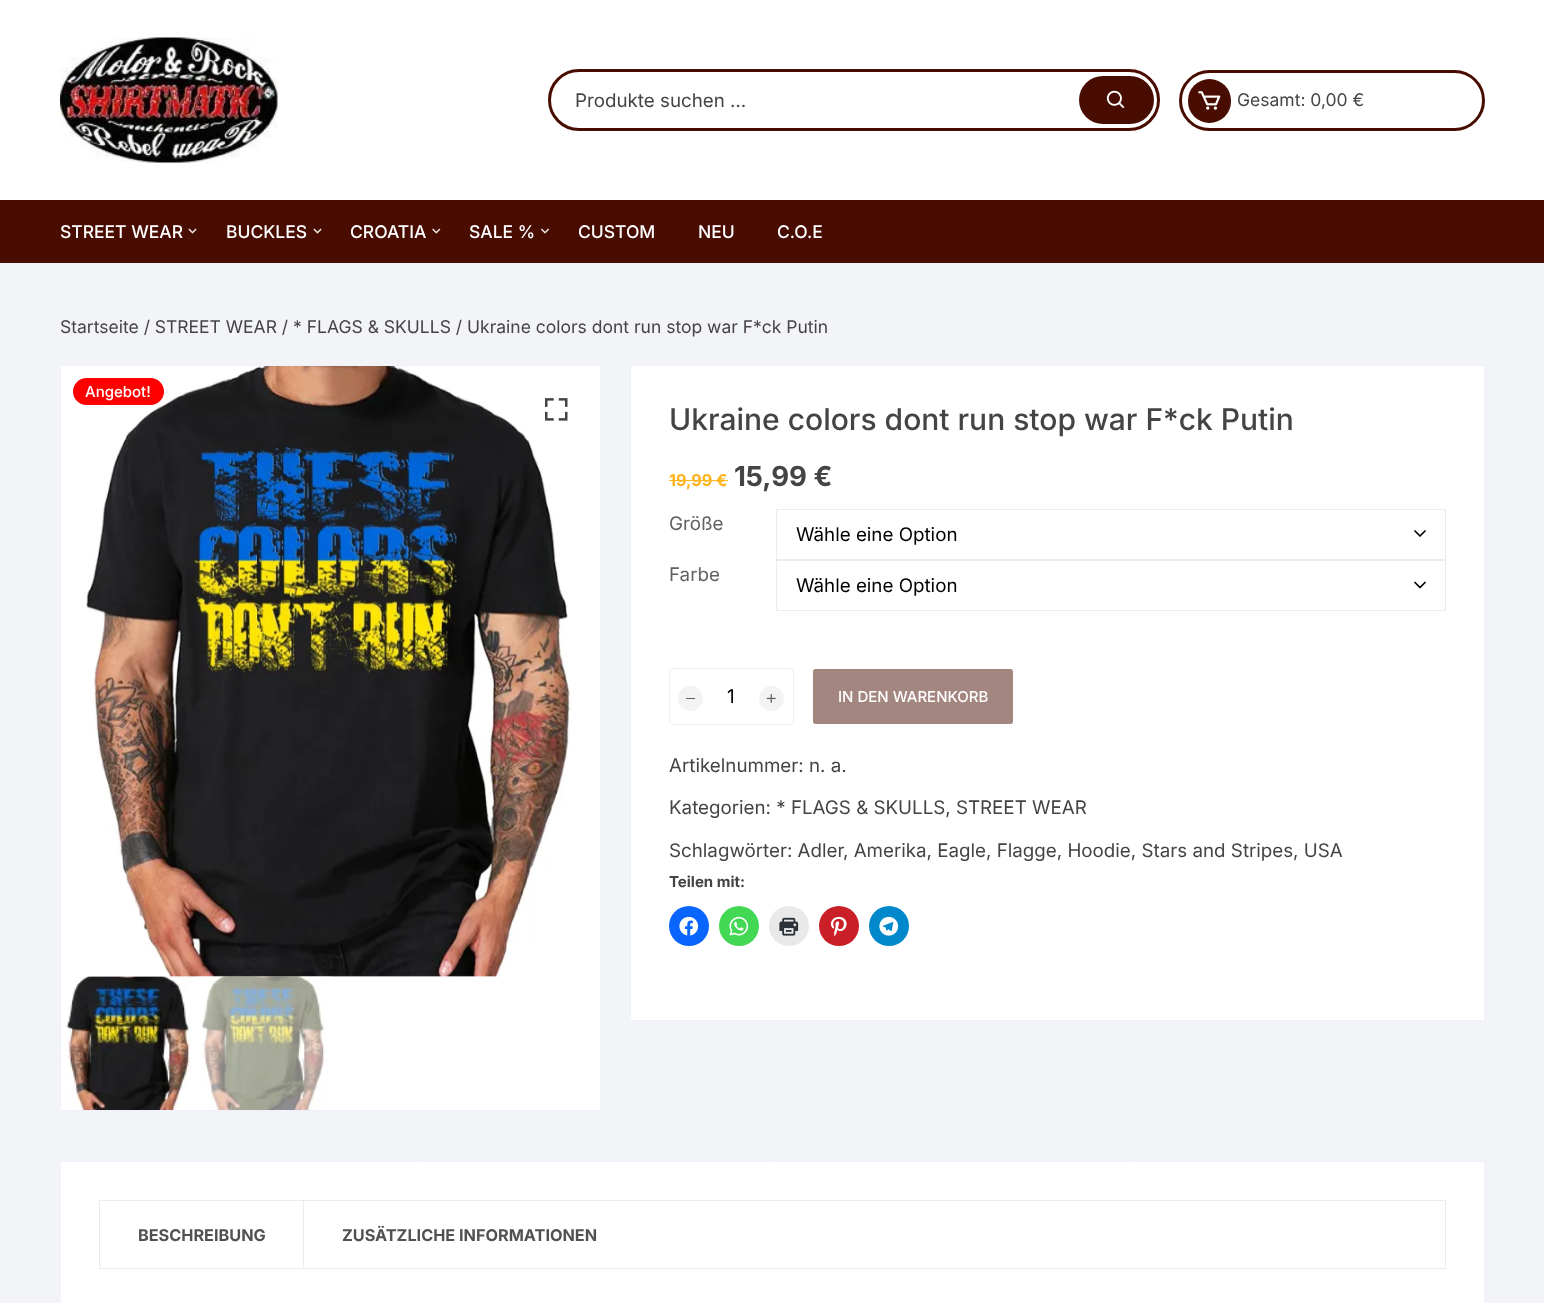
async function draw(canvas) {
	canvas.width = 1544;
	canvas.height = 1303;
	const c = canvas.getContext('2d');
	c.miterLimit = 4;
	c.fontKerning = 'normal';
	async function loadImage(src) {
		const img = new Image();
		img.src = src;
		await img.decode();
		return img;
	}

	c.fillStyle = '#f3f4f8';
	c.fillRect(0, 0, 1544, 1303);
	c.fillStyle = '#fff';
	c.fillRect(0, 0, 1544, 200);
	c.drawImage(await loadImage('img1.png'), 60, 37, 218, 126);
	c.beginPath();
	c.roundRect(549.5, 70.5, 609, 59, 29.5);
	c.strokeStyle = '#490c00';
	c.lineWidth = 3;
	c.stroke();
	c.font = '18.75px Inter';
	c.fillStyle = '#444';
	c.fillText('Produkte suchen …', 575, 107);
	c.fillStyle = '#490c00';
	c.beginPath();
	c.roundRect(1079, 76, 75, 48, 24);
	c.fill();
	c.drawImage(await loadImage('img2.png'), 1106, 90, 19, 19);
	c.beginPath();
	c.roundRect(1180.5, 71.5, 303, 58, 29);
	c.stroke();
	c.beginPath();
	c.roundRect(1188, 79, 43, 44, 21.5);
	c.fill();
	c.drawImage(await loadImage('img3.png'), 1198, 91, 23, 19);
	c.font = '17.5px Inter';
	c.fillStyle = '#444';
	c.fillText('Gesamt: 0,00 €', 1237, 106);
	c.fillStyle = '#490c00';
	c.fillRect(0, 200, 1544, 63);
	c.font = '500 17.5px Inter';
	c.fillStyle = '#fff';
	c.fillText('STREET WEAR', 60, 238);
	c.drawImage(await loadImage('img4.png'), 188, 228, 9, 6);
	c.fillText('BUCKLES', 226, 238);
	c.drawImage(await loadImage('img4.png'), 313, 228, 9, 6);
	c.fillText('CROATIA', 350, 238);
	c.drawImage(await loadImage('img5.png'), 432, 228, 9, 6);
	c.fillText('SALE %', 469, 238);
	c.drawImage(await loadImage('img6.png'), 541, 228, 8, 6);
	for (const [text, x, y] of [
		['CUSTOM', 578, 238],
		['NEU', 698, 238],
		['C.O.E', 777, 238],
	]) {
		c.fillText(text, x, y);
	}
	c.font = '17.5px Inter';
	c.fillStyle = '#444';
	c.fillText('Startseite / STREET WEAR / * FLAGS & SKULLS / Ukraine colors dont run stop war F*ck Putin', 60, 333);
	c.fillStyle = '#fff';
	c.beginPath();
	c.rect(60.5, 365.5, 540, 745);
	c.fill();
	c.strokeStyle = '#eef1fd';
	c.lineWidth = 1;
	c.stroke();
	c.drawImage(await loadImage('img9.png'), 62, 976, 129, 134);
	c.drawImage(await loadImage('img7.png'), 86, 366, 485, 611);
	c.drawImage(await loadImage('img8.png'), 545, 398, 23, 23);
	c.drawImage(await loadImage('img10.png'), 196, 976, 136, 134);
	c.fillStyle = '#f00';
	c.beginPath();
	c.roundRect(73, 378, 91, 27, 13.5);
	c.fill();
	c.font = '500 15px Inter';
	c.fillStyle = '#fff';
	c.fillText('Angebot!', 85, 397);
	c.beginPath();
	c.rect(630.5, 365.5, 854, 655);
	c.fill();
	c.stroke();
	c.font = '500 30px Inter';
	c.fillStyle = '#444';
	c.fillText('Ukraine colors dont run stop war F*ck Putin', 669, 430);
	c.font = 'bold 16.25px Inter';
	c.fillStyle = '#ffb41d';
	c.fillText('19,99 €', 669, 486);
	c.fillRect(669, 480, 59, 1);
	c.font = 'bold 27.5px Inter';
	c.fillStyle = '#444';
	c.fillText('15,99 €', 734, 486);
	c.font = '18.75px Inter';
	c.fillStyle = '#616161';
	c.fillText('Größe', 669, 530);
	c.beginPath();
	c.moveTo(1415, 531);
	c.lineTo(1420, 536);
	c.lineTo(1425, 531);
	c.strokeStyle = '#000';
	c.lineWidth = 1.7;
	c.lineCap = 'round';
	c.lineJoin = 'round';
	c.stroke();
	c.strokeStyle = '#ececec';
	c.lineWidth = 1;
	c.lineJoin = 'miter';
	c.strokeRect(776.5, 509.5, 669, 50);
	c.fillStyle = '#000';
	c.fillText('Wähle eine Option', 796, 541);
	c.fillStyle = '#616161';
	c.fillText('Farbe', 669, 581);
	c.beginPath();
	c.moveTo(1415, 582.5);
	c.lineTo(1420, 587.5);
	c.lineTo(1425, 582.5);
	c.strokeStyle = '#000';
	c.lineWidth = 1.7;
	c.lineJoin = 'round';
	c.stroke();
	c.strokeStyle = '#ececec';
	c.lineWidth = 1;
	c.lineJoin = 'miter';
	c.strokeRect(776.5, 560.5, 669, 50);
	c.fillStyle = '#000';
	c.fillText('Wähle eine Option', 796, 592);
	c.beginPath();
	c.roundRect(669.5, 668.5, 124, 56, 3.5);
	c.strokeStyle = '#efefef';
	c.stroke();
	c.fillStyle = '#f3f3f3';
	c.beginPath();
	c.arc(690.5, 698.5, 12.5, 0, 2 * Math.PI);
	c.fill();
	c.fillStyle = '#616161';
	c.fillRect(686, 698, 9, 1);
	c.fillStyle = '#000';
	c.fillText('1', 727, 703);
	c.fillStyle = '#f3f3f3';
	c.beginPath();
	c.arc(771.5, 698.5, 12.5, 0, 2 * Math.PI);
	c.fill();
	c.drawImage(await loadImage('img11.png'), 766, 694, 10, 9);
	c.fillStyle = '#a48680';
	c.beginPath();
	c.roundRect(813, 669, 200, 55, 2.5);
	c.fill();
	c.font = '500 15px Inter';
	c.fillStyle = '#fff';
	c.fillText('IN DEN WARENKORB', 838, 702);
	c.font = '18.75px Inter';
	c.fillStyle = '#444';
	for (const [text, x, y] of [
		['Artikelnummer: n. a.', 669, 772],
		['Kategorien: * FLAGS & SKULLS, STREET WEAR', 669, 814],
		['Schlagwörter: Adler', 669, 857],
		[', Amerika, Eagle, Flagge, Hoodie, Stars and Stripes, USA', 843, 857],
	]) {
		c.fillText(text, x, y);
	}
	c.font = 'bold 15px Inter';
	c.fillText('Teilen mit:', 669, 887);
	c.fillStyle = '#0866ff';
	c.beginPath();
	c.arc(689, 926, 20, 0, 2 * Math.PI);
	c.fill();
	c.drawImage(await loadImage('img12.png'), 679, 916, 20, 20);
	c.fillStyle = '#43d854';
	c.beginPath();
	c.arc(739, 926, 20, 0, 2 * Math.PI);
	c.fill();
	c.drawImage(await loadImage('img13.png'), 729, 916, 20, 20);
	c.fillStyle = '#e9e9e9';
	c.beginPath();
	c.arc(789, 926, 20, 0, 2 * Math.PI);
	c.fill();
	c.drawImage(await loadImage('img14.png'), 779, 917, 20, 19);
	c.fillStyle = '#ca1f27';
	c.beginPath();
	c.arc(839, 926, 20, 0, 2 * Math.PI);
	c.fill();
	c.drawImage(await loadImage('img15.png'), 830, 916, 17, 21);
	c.fillStyle = '#08c';
	c.beginPath();
	c.arc(889, 926, 20, 0, 2 * Math.PI);
	c.fill();
	c.drawImage(await loadImage('img16.png'), 879, 916, 20, 20);
	c.fillStyle = '#fff';
	c.beginPath();
	c.rect(60.5, 1161.5, 1424, 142);
	c.fill();
	c.strokeStyle = '#eef1fd';
	c.stroke();
	c.strokeStyle = '#ececec';
	c.strokeRect(99.5, 1200.5, 1346, 68);
	c.fillStyle = '#ececec';
	c.fillRect(303, 1201, 1, 67);
	c.font = 'bold 16.25px Inter';
	c.fillStyle = '#515151';
	c.fillText('BESCHREIBUNG', 138, 1241);
	c.fillText('ZUSÄTZLICHE INFORMATIONEN', 342, 1241);
}

draw(document.querySelector('canvas'));
